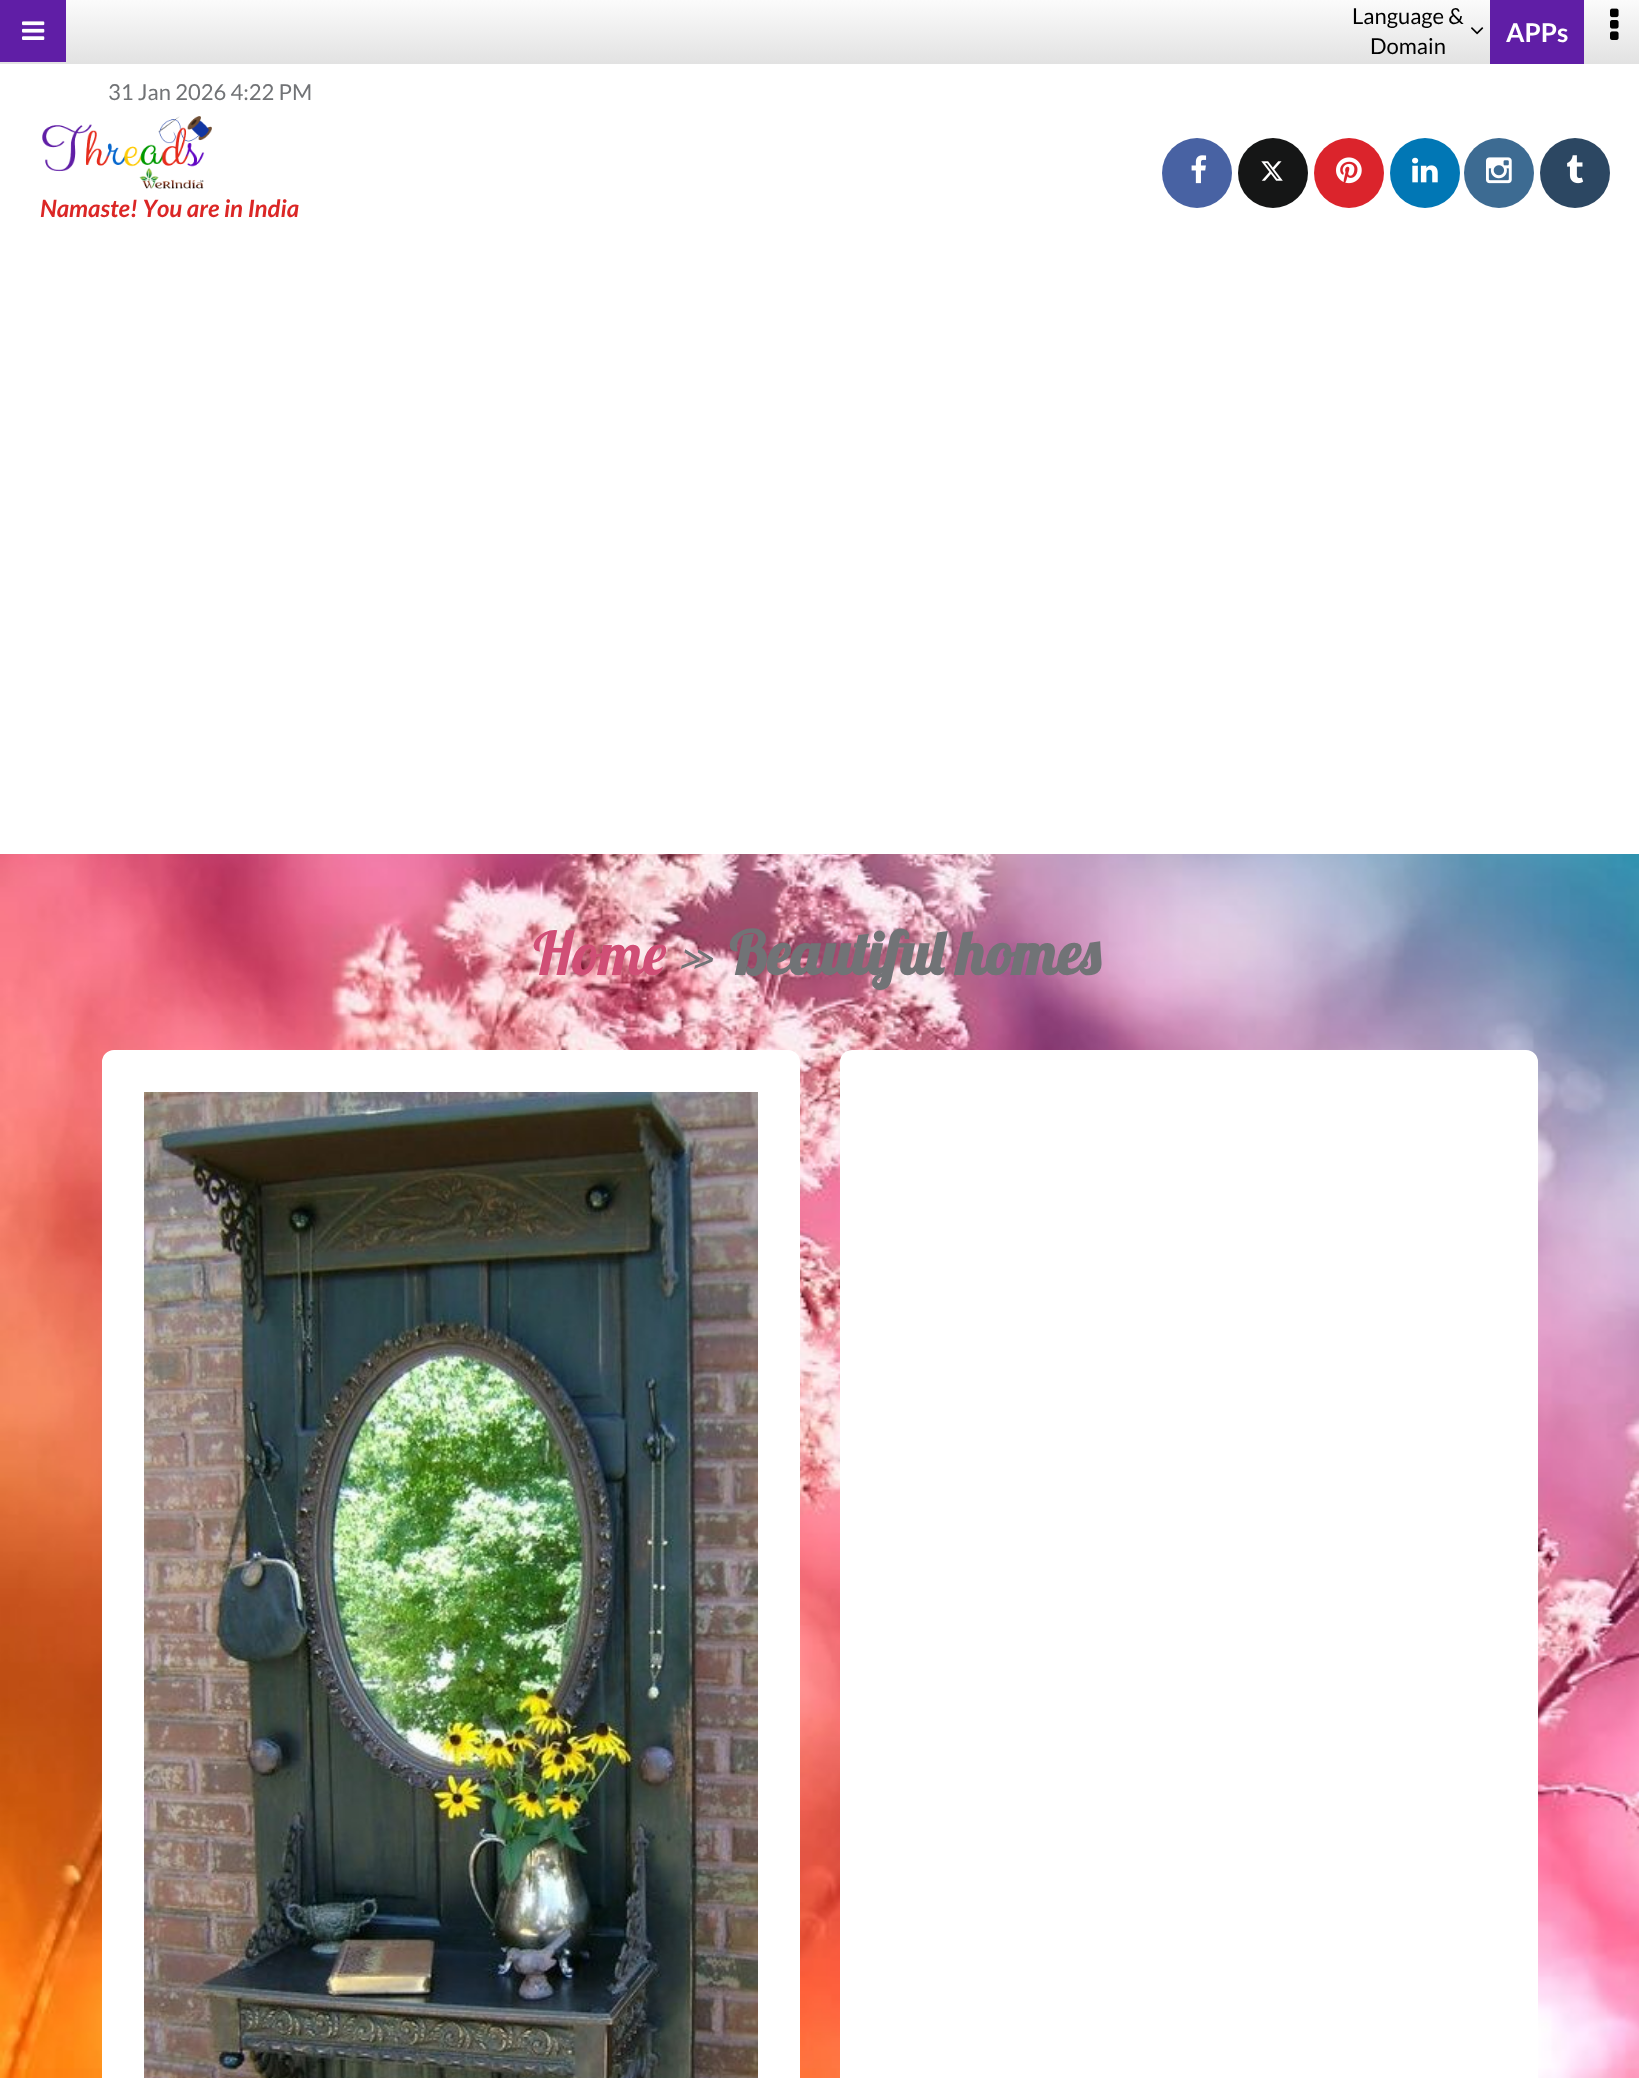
async function draw(canvas) {
	canvas.width = 1639;
	canvas.height = 2078;
	const c = canvas.getContext('2d');
	c.miterLimit = 4;
	c.fontKerning = 'none';
	async function loadImage(src) {
		const img = new Image();
		img.src = src;
		await img.decode();
		return img;
	}
	let gradient;

	c.fillStyle = '#fff';
	c.fillRect(0, 0, 1639, 2078);
	gradient = c.createLinearGradient(820, 0, 820, 64);
	gradient.addColorStop(0, '#fbfbfb');
	gradient.addColorStop(1, '#e2e2e2');
	c.fillStyle = gradient;
	c.fillRect(0, 0, 1639, 64);
	c.fillStyle = '#601ea6';
	c.fillRect(0, 0, 66, 62);
	c.drawImage(await loadImage('img1.png'), 22, 21, 23, 19);
	c.font = '22px Lato';
	c.fillStyle = '#000';
	c.fillText('Language &', 1352, 24);
	c.drawImage(await loadImage('img2.png'), 1471, 27, 13, 8);
	c.fillText('Domain', 1370, 54);
	c.fillStyle = '#601ea6';
	c.fillRect(1490, 0, 94, 64);
	c.font = 'bold 26px Lato';
	c.fillStyle = '#fff';
	c.fillText('APPs', 1506, 42);
	c.drawImage(await loadImage('img3.png'), 1610, 8, 9, 32);
	c.font = '22px Lato';
	c.fillStyle = '#717376';
	c.fillText('31 Jan 2026 4:22 PM', 108, 100);
	c.drawImage(await loadImage('img4.png'), 42, 116, 170, 73);
	c.font = 'italic bold 24px Lato';
	c.fillStyle = '#db2726';
	c.fillText('Namaste! You are in India', 40, 217);
	c.fillStyle = '#4862a3';
	c.beginPath();
	c.arc(1197, 173, 35, 0, 2 * Math.PI);
	c.fill();
	c.drawImage(await loadImage('img5.png'), 1191, 155, 16, 29);
	c.fillStyle = '#151616';
	c.beginPath();
	c.arc(1273, 173, 35, 0, 2 * Math.PI);
	c.fill();
	c.drawImage(await loadImage('img6.png'), 1261, 161, 22, 20);
	c.fillStyle = '#db242c';
	c.beginPath();
	c.arc(1349, 173, 35, 0, 2 * Math.PI);
	c.fill();
	c.drawImage(await loadImage('img7.png'), 1336, 157, 26, 27);
	c.fillStyle = '#0177b5';
	c.beginPath();
	c.arc(1425, 173, 35, 0, 2 * Math.PI);
	c.fill();
	c.drawImage(await loadImage('img8.png'), 1412, 157, 26, 26);
	c.fillStyle = '#3d6b92';
	c.beginPath();
	c.arc(1499, 173, 35, 0, 2 * Math.PI);
	c.fill();
	c.drawImage(await loadImage('img9.png'), 1486, 157, 26, 27);
	c.fillStyle = '#2c4762';
	c.beginPath();
	c.arc(1575, 173, 35, 0, 2 * Math.PI);
	c.fill();
	c.drawImage(await loadImage('img10.png'), 1567, 155, 17, 29);
	c.drawImage(await loadImage('img11.png'), 0, 854, 1639, 1224);
	c.font = '60px Lobster';
	c.fillStyle = '#d04e76';
	c.fillText('Home', 533, 975);
	c.fillStyle = '#717376';
	c.fillText('»', 680, 975);
	c.font = 'bold 60px Lobster';
	c.fillText('Beautiful homes', 729, 975);
	c.fillStyle = '#fff';
	c.beginPath();
	c.roundRect(103, 1051, 696, 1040, 11);
	c.fill();
	c.strokeStyle = '#fff';
	c.lineWidth = 2;
	c.stroke();
	c.drawImage(await loadImage('img12.png'), 144, 1092, 614, 986);
	c.beginPath();
	c.roundRect(841, 1051, 696, 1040, 11);
	c.fill();
	c.stroke();
}

draw(document.querySelector('canvas'));
